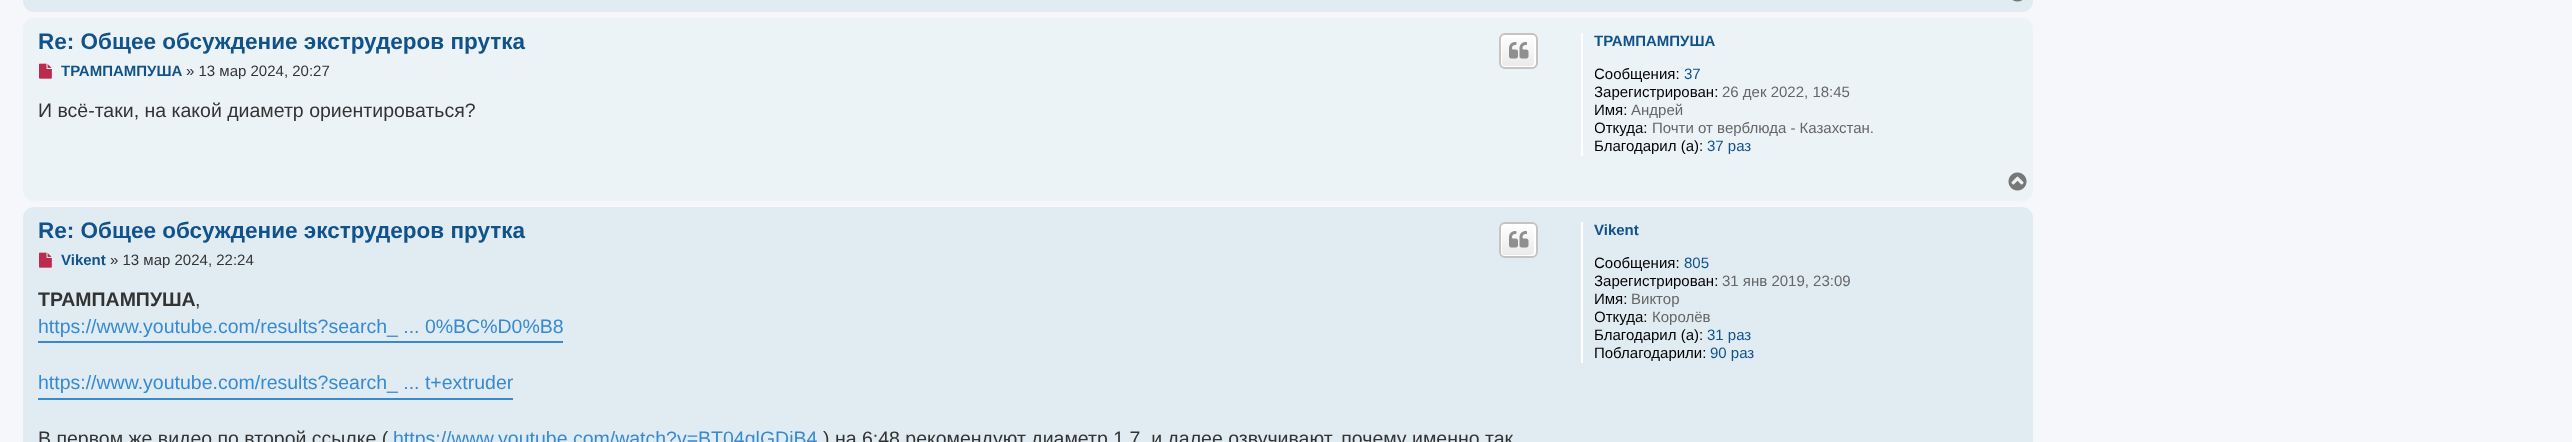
async function draw(canvas) {
	canvas.width = 2572;
	canvas.height = 442;
	const c = canvas.getContext('2d');
	c.miterLimit = 4;
	c.fontKerning = 'normal';
	async function loadImage(src) {
		const img = new Image();
		img.src = src;
		await img.decode();
		return img;
	}
	let gradient;

	c.fillStyle = '#f5f7fa';
	c.fillRect(0, 0, 2572, 442);
	c.fillStyle = '#e1ebf2';
	c.beginPath();
	c.roundRect(23, -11, 2010, 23, 11);
	c.fill();
	c.drawImage(await loadImage('img1.png'), 2012, 0, 11, 2);
	c.fillStyle = '#ecf3f7';
	c.beginPath();
	c.roundRect(23, 18, 2010, 183, 11);
	c.fill();
	c.font = 'bold 22.5px Liberation Sans';
	c.fillStyle = '#105289';
	c.fillText('Re: Общее обсуждение экструдеров прутка', 38, 49);
	c.save();
	c.beginPath();
	c.roundRect(1499, 33, 39, 36, 6);
	c.clip();
	gradient = c.createLinearGradient(1518, 35, 1518, 68);
	gradient.addColorStop(0, '#fff');
	gradient.addColorStop(1, '#e9e9e9');
	c.fillStyle = gradient;
	c.fillRect(1499, 35, 39, 33);
	c.restore();
	c.beginPath();
	c.roundRect(1501, 36, 34, 31, 4);
	c.strokeStyle = '#fff';
	c.lineWidth = 2;
	c.stroke();
	c.beginPath();
	c.roundRect(1500, 34, 37, 34, 5);
	c.strokeStyle = '#c7c3bf';
	c.stroke();
	c.drawImage(await loadImage('img2.png'), 1509, 42, 20, 17);
	c.drawImage(await loadImage('img3.png'), 39, 63, 13, 16);
	c.font = 'bold 15px Liberation Sans';
	c.fillText('ТРАМПАМПУША', 61, 76);
	c.font = '15px Liberation Sans';
	c.fillStyle = '#333';
	c.fillText('» 13 мар 2024, 20:27', 186, 76);
	c.font = '19.5px Liberation Sans';
	c.fillText('И всё-таки, на какой диаметр ориентироваться?', 38, 117);
	c.fillStyle = '#fff';
	c.fillRect(1581, 33, 2, 123);
	c.font = 'bold 15px Liberation Sans';
	c.fillStyle = '#105289';
	c.fillText('ТРАМПАМПУША', 1594, 46);
	c.save();
	c.beginPath();
	c.rect(1595, 66, 423, 18);
	c.clip();
	c.font = '15px Liberation Sans';
	c.fillStyle = '#000';
	c.fillText('Сообщения:', 1594, 79);
	c.restore();
	c.font = '15px Liberation Sans';
	c.fillText('37', 1684, 79);
	c.save();
	c.beginPath();
	c.rect(1595, 84, 423, 18);
	c.clip();
	c.fillStyle = '#000';
	c.fillText('Зарегистрирован:', 1594, 97);
	c.restore();
	c.fillStyle = '#666';
	c.fillText('26 дек 2022, 18:45', 1722, 97);
	c.fillStyle = '#000';
	c.fillText('Имя:', 1594, 115);
	c.fillStyle = '#666';
	c.fillText('Андрей', 1631, 115);
	c.save();
	c.beginPath();
	c.rect(1595, 120, 423, 18);
	c.clip();
	c.fillStyle = '#000';
	c.fillText('Откуда:', 1594, 133);
	c.restore();
	c.fillText('Почти от верблюда - Казахстан.', 1652, 133);
	c.fillStyle = '#000';
	c.fillText('Благодарил (а):', 1594, 151);
	c.fillStyle = '#105289';
	c.fillText('37 раз', 1707, 151);
	c.drawImage(await loadImage('img4.png'), 2008, 172, 19, 19);
	c.fillStyle = '#e1ebf2';
	c.beginPath();
	c.roundRect(23, 207, 2010, 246, 11);
	c.fill();
	c.font = 'bold 22.5px Liberation Sans';
	c.fillStyle = '#105289';
	c.fillText('Re: Общее обсуждение экструдеров прутка', 38, 238);
	c.save();
	c.beginPath();
	c.roundRect(1499, 222, 39, 36, 6);
	c.clip();
	gradient = c.createLinearGradient(1518, 224, 1518, 257);
	gradient.addColorStop(0, '#fff');
	gradient.addColorStop(1, '#e9e9e9');
	c.fillStyle = gradient;
	c.fillRect(1499, 224, 39, 33);
	c.restore();
	c.beginPath();
	c.roundRect(1501, 225, 34, 31, 4);
	c.strokeStyle = '#fff';
	c.stroke();
	c.beginPath();
	c.roundRect(1500, 223, 37, 34, 5);
	c.strokeStyle = '#c7c3bf';
	c.stroke();
	c.drawImage(await loadImage('img2.png'), 1509, 231, 20, 17);
	c.drawImage(await loadImage('img5.png'), 39, 252, 13, 16);
	c.font = 'bold 15px Liberation Sans';
	c.fillText('Vikent', 61, 265);
	c.font = '15px Liberation Sans';
	c.fillStyle = '#333';
	c.fillText('» 13 мар 2024, 22:24', 110, 265);
	c.save();
	c.beginPath();
	c.rect(38, 287, 1504, 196);
	c.clip();
	c.font = 'bold 19.5px Liberation Sans';
	c.fillText('ТРАМПАМПУША', 38, 306);
	c.restore();
	c.font = '19.5px Liberation Sans';
	c.fillText(',', 195, 306);
	c.fillStyle = '#368ad2';
	c.fillRect(38, 341, 525, 2);
	c.fillText('https://www.youtube.com/results?search_ ... 0%BC%D0%B8', 38, 333);
	c.fillRect(38, 398, 475, 2);
	c.fillText('https://www.youtube.com/results?search_ ... t+extruder', 38, 389);
	c.fillStyle = '#333';
	c.fillText('В первом же видео по второй ссылке (', 38, 445);
	c.fillStyle = '#368ad2';
	c.fillText('https://www.youtube.com/watch?v=BT04glGDjB4', 393, 445);
	c.fillStyle = '#333';
	c.fillText(') на 6:48 рекомендуют диаметр 1,7, и далее озвучивают, почему именно так', 823, 445);
	c.fillStyle = '#fff';
	c.fillRect(1581, 222, 2, 141);
	c.font = 'bold 15px Liberation Sans';
	c.fillStyle = '#105289';
	c.fillText('Vikent', 1594, 235);
	c.save();
	c.beginPath();
	c.rect(1595, 255, 423, 18);
	c.clip();
	c.font = '15px Liberation Sans';
	c.fillStyle = '#000';
	c.fillText('Сообщения:', 1594, 268);
	c.restore();
	c.font = '15px Liberation Sans';
	c.fillText('805', 1684, 268);
	c.save();
	c.beginPath();
	c.rect(1595, 273, 423, 18);
	c.clip();
	c.fillStyle = '#000';
	c.fillText('Зарегистрирован:', 1594, 286);
	c.restore();
	c.fillStyle = '#666';
	c.fillText('31 янв 2019, 23:09', 1722, 286);
	c.fillStyle = '#000';
	c.fillText('Имя:', 1594, 304);
	c.fillStyle = '#666';
	c.fillText('Виктор', 1631, 304);
	c.save();
	c.beginPath();
	c.rect(1595, 309, 423, 18);
	c.clip();
	c.fillStyle = '#000';
	c.fillText('Откуда:', 1594, 322);
	c.restore();
	c.fillText('Королёв', 1652, 322);
	c.fillStyle = '#000';
	c.fillText('Благодарил (а):', 1594, 340);
	c.fillStyle = '#105289';
	c.fillText('31 раз', 1707, 340);
	c.fillStyle = '#000';
	c.fillText('Поблагодарили:', 1594, 358);
	c.fillStyle = '#105289';
	c.fillText('90 раз', 1710, 358);
}

draw(document.querySelector('canvas'));
